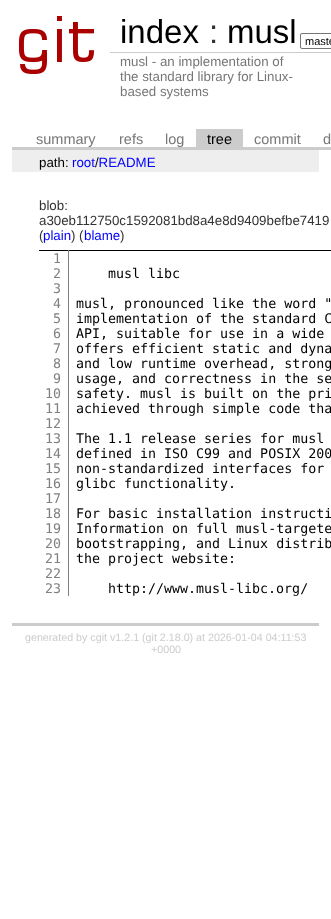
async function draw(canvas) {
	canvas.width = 331;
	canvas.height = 919;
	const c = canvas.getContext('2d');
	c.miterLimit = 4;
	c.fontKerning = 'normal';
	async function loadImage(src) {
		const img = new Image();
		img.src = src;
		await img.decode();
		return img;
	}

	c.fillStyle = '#fff';
	c.fillRect(0, 0, 331, 919);
	c.drawImage(await loadImage('img1.png'), 19, 16, 75, 58);
	c.font = '33px Liberation Sans';
	c.fillStyle = '#000';
	c.fillText('index', 120, 43);
	c.fillStyle = '#333';
	c.fillText(':', 209, 43);
	c.fillStyle = '#000';
	c.fillText('musl', 227, 43);
	c.beginPath();
	c.roundRect(300.5, 33.5, 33, 15, 1.5);
	c.strokeStyle = '#767676';
	c.stroke();
	c.font = '11px Liberation Sans';
	c.fillText('maste', 305, 45);
	c.fillStyle = '#ccc';
	c.fillRect(110, 52, 221, 1);
	c.font = '13.3px Liberation Sans';
	c.fillStyle = '#777';
	for (const [text, x, y] of [
		['musl - an implementation of', 120, 66],
		['the standard library for Linux-', 120, 81],
		['based systems', 120, 96],
	]) {
		c.fillText(text, x, y);
	}
	c.fillStyle = '#ccc';
	c.fillRect(12, 147, 319, 3);
	c.font = '14.5px Liberation Sans';
	c.fillStyle = '#777';
	for (const [text, x, y] of [
		['summary', 36, 144],
		['refs', 119, 144],
		['log', 165, 144],
	]) {
		c.fillText(text, x, y);
	}
	c.fillStyle = '#ccc';
	c.fillRect(196, 129, 47, 18);
	c.fillStyle = '#000';
	c.fillText('tree', 207, 144);
	c.fillStyle = '#777';
	c.fillText('commit', 254, 144);
	c.fillText('d', 323, 144);
	c.fillStyle = '#eee';
	c.fillRect(12, 150, 307, 22);
	c.font = '13.3px Liberation Sans';
	c.fillStyle = '#000';
	c.fillText('path:', 39, 167);
	c.fillStyle = '#00f';
	c.fillText('root README', 72, 167);
	c.fillStyle = '#000';
	c.fillText('/', 95, 167);
	c.fillStyle = '#ccc';
	c.fillRect(12, 623, 307, 3);
	c.fillStyle = '#333';
	for (const [text, x, y] of [
		['blob:', 39, 210],
		['a30eb112750c1592081bd8a4e8d9409befbe7419', 39, 225],
		['(', 39, 240],
	]) {
		c.fillText(text, x, y);
	}
	c.fillStyle = '#00f';
	c.fillText('plain', 43, 240);
	c.fillStyle = '#333';
	c.fillText(') (', 71, 240);
	c.fillStyle = '#00f';
	c.fillText('blame', 84, 240);
	c.fillStyle = '#333';
	c.fillText(')', 120, 240);
	c.fillStyle = '#000';
	c.fillRect(39, 250, 292, 1);
	c.fillStyle = '#808080';
	c.fillRect(68, 250, 1, 346);
	c.font = '13.3px DejaVu Sans Mono';
	for (const [text, x, y] of [
		['1', 53, 263],
		['2', 53, 278],
		['3', 53, 293],
		['4', 53, 308],
		['5', 53, 323],
		['6', 53, 338],
		['7', 53, 353],
		['8', 53, 368],
		['9', 53, 383],
		['10', 45, 398],
		['11', 45, 413],
		['12', 45, 428],
		['13', 45, 443],
		['14', 45, 458],
		['15', 45, 473],
		['16', 45, 488],
		['17', 45, 503],
		['18', 45, 518],
		['19', 45, 533],
		['20', 45, 548],
		['21', 45, 563],
		['22', 45, 578],
		['23', 45, 593],
	]) {
		c.fillText(text, x, y);
	}
	c.fillStyle = '#000';
	for (const [text, x, y] of [
		['musl libc', 108, 278],
		['musl, pronounced like the word "', 76, 308],
		['implementation of the standard C', 76, 323],
		['API, suitable for use in a wide', 76, 338],
		['offers efficient static and dyna', 76, 353],
		['and low runtime overhead, strong', 76, 368],
		['usage, and correctness in the se', 76, 383],
		['safety. musl is built on the pri', 76, 398],
		['achieved through simple code tha', 76, 413],
		['The 1.1 release series for musl', 76, 443],
		['defined in ISO C99 and POSIX 200', 76, 458],
		['non-standardized interfaces for', 76, 473],
		['glibc functionality.', 76, 488],
		['For basic installation instructi', 76, 518],
		['Information on full musl-targete', 76, 533],
		['bootstrapping, and Linux distrib', 76, 548],
		['the project website:', 76, 563],
		['http://www.musl-libc.org/', 108, 593],
	]) {
		c.fillText(text, x, y);
	}
	c.font = '10.7px Liberation Sans';
	c.fillStyle = '#ccc';
	c.fillText('generated by cgit v1.2.1 (git 2.18.0) at 2026-01-04 04:11:53', 25, 641);
	c.fillText('+0000', 151, 653);
}

draw(document.querySelector('canvas'));
